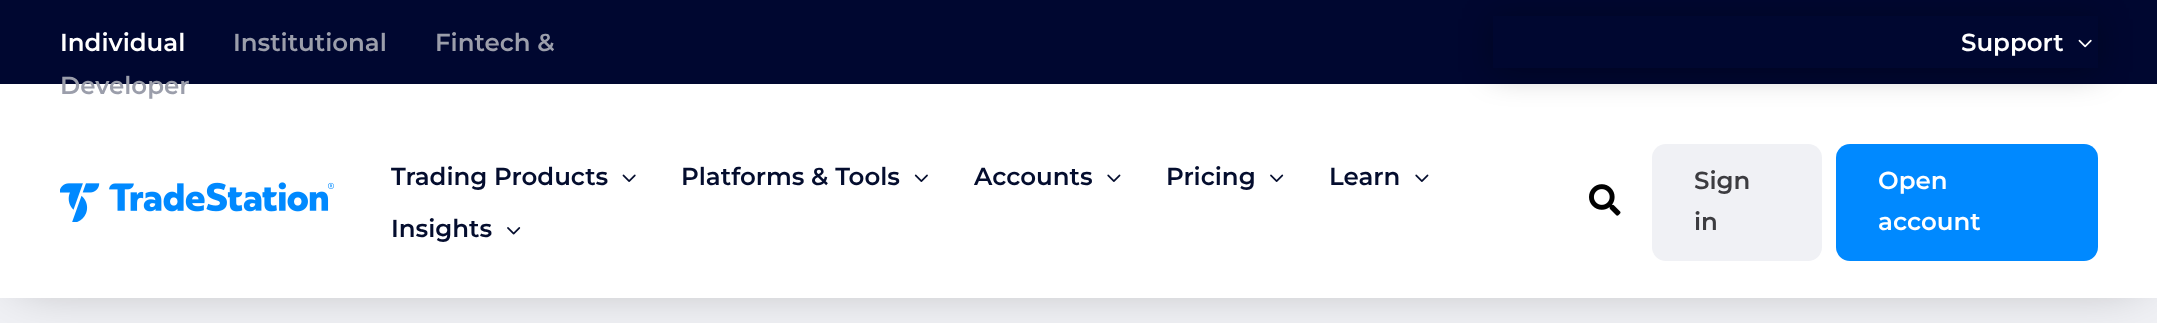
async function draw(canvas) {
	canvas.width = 2157;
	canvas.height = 323;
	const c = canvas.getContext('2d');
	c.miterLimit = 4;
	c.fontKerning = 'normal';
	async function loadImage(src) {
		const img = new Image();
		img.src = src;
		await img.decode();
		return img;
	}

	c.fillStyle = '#f0f1f5';
	c.fillRect(0, 0, 2157, 323);
	c.fillStyle = '#0000004d';
	c.filter = 'blur(27px)';
	c.beginPath();
	c.rect(19, 107, 2120, 175);
	c.fill();
	c.filter = 'none';
	c.fillStyle = '#000730';
	c.fillRect(0, 0, 2157, 84);
	c.font = '600 24.5px Montserrat';
	c.fillStyle = '#fff';
	c.fillText('Individual', 60, 51);
	c.fillStyle = '#9b9eab';
	c.fillText('Institutional', 233, 51);
	c.fillText('Fintech &', 435, 51);
	c.fillStyle = '#fff';
	c.fillRect(0, 84, 2157, 214);
	c.fillStyle = '#9b9eab';
	c.fillText('Developer', 60, 94);
	c.save();
	c.beginPath();
	c.moveTo(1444, 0);
	c.lineTo(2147, 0);
	c.lineTo(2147, 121);
	c.lineTo(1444, 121);
	c.closePath();
	c.moveTo(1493, 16);
	c.lineTo(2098, 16);
	c.lineTo(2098, 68);
	c.lineTo(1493, 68);
	c.closePath();
	c.clip('evenodd');
	c.fillStyle = '#0000004d';
	c.filter = 'blur(16px)';
	c.beginPath();
	c.rect(1493, 19, 605, 53);
	c.fill();
	c.filter = 'none';
	c.restore();
	c.fillStyle = '#fff';
	c.fillText('Support', 1961, 51);
	c.drawImage(await loadImage('img1.png'), 2078, 39, 14, 9);
	c.drawImage(await loadImage('img2.png'), 60, 182, 274, 40);
	c.fillStyle = '#040d2e';
	c.fillText('Trading Products', 391, 185);
	c.drawImage(await loadImage('img3.png'), 622, 174, 14, 8);
	c.fillText('Platforms & Tools', 681, 185);
	c.drawImage(await loadImage('img4.png'), 914, 174, 14, 8);
	c.fillText('Accounts', 974, 185);
	c.drawImage(await loadImage('img5.png'), 1107, 174, 14, 8);
	c.fillText('Pricing', 1166, 185);
	c.drawImage(await loadImage('img6.png'), 1270, 174, 14, 8);
	c.fillText('Learn', 1329, 185);
	c.drawImage(await loadImage('img5.png'), 1415, 174, 14, 8);
	c.fillText('Insights', 391, 237);
	c.drawImage(await loadImage('img7.png'), 507, 227, 14, 8);
	c.drawImage(await loadImage('img8.png'), 1589, 184, 32, 32);
	c.fillStyle = '#f0f1f5';
	c.beginPath();
	c.roundRect(1652, 144, 170, 117, 14);
	c.fill();
	c.fillStyle = '#3c3c40';
	c.fillText('Sign', 1694, 189);
	c.fillText('in', 1694, 230);
	c.fillStyle = '#0089ff';
	c.beginPath();
	c.roundRect(1836, 144, 262, 117, 14);
	c.fill();
	c.fillStyle = '#fff';
	c.fillText('Open', 1878, 189);
	c.fillText('account', 1878, 230);
}

draw(document.querySelector('canvas'));
